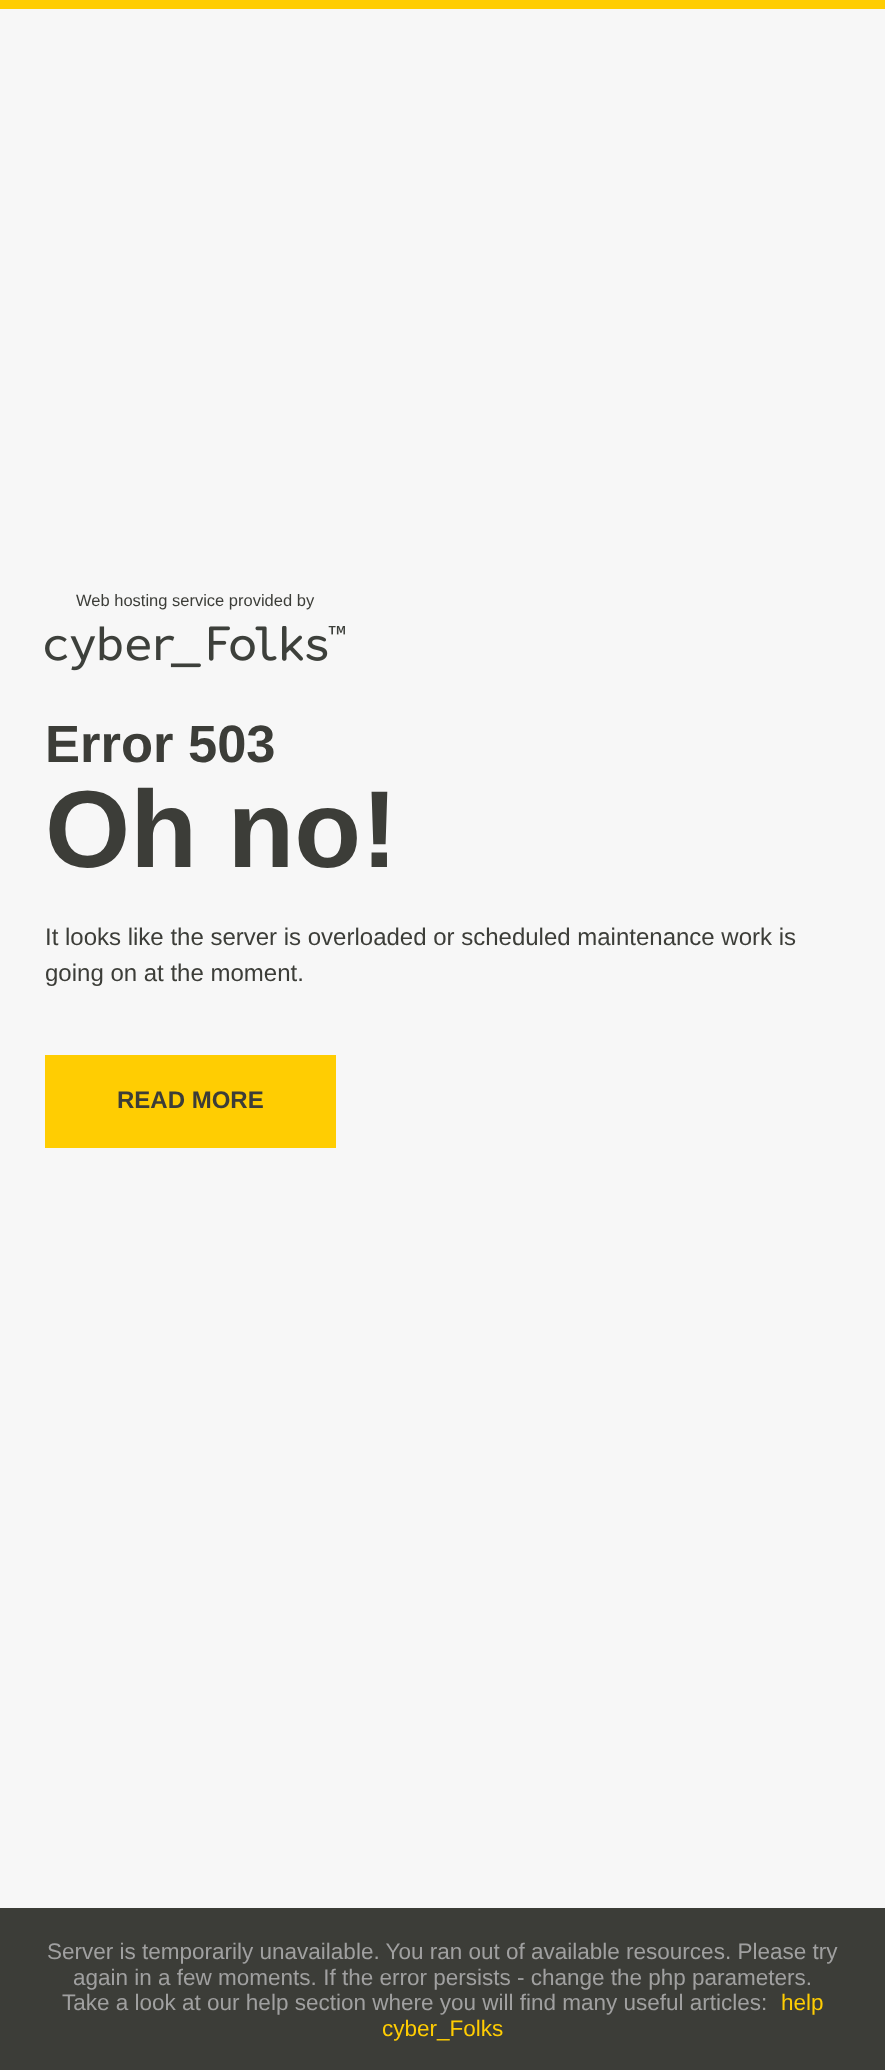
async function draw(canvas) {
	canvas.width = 885;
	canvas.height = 2070;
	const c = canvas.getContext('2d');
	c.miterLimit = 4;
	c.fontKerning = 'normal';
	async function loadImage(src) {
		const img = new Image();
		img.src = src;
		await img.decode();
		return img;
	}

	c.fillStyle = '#f7f7f7';
	c.fillRect(0, 0, 885, 2070);
	c.fillStyle = '#ffcd02';
	c.fillRect(0, 0, 885, 9);
	c.font = '16.5px Liberation Sans';
	c.fillStyle = '#3c3d38';
	c.fillText('Web hosting service provided by', 76, 606);
	c.drawImage(await loadImage('img1.png'), 45, 626, 300, 45);
	c.font = 'bold 52.5px Liberation Sans';
	c.fillText('Error 503', 45, 762);
	c.font = 'bold 109.5px Liberation Sans';
	c.fillText('Oh no!', 45, 867);
	c.font = '24px Liberation Sans';
	c.fillText('It looks like the server is overloaded or scheduled maintenance work is', 45, 945);
	c.fillText('going on at the moment.', 45, 981);
	c.fillStyle = '#ffcd02';
	c.fillRect(45, 1055, 291, 93);
	c.font = 'bold 24px Liberation Sans';
	c.fillStyle = '#3c3d38';
	c.fillText('READ MORE', 117, 1108);
	c.fillRect(0, 1908, 885, 162);
	c.font = '22.5px Liberation Sans';
	c.fillStyle = '#a0a0a0';
	for (const [text, x, y] of [
		['Server is temporarily unavailable. You ran out of available resources. Please try', 47, 1959],
		['again in a few moments. If the error persists - change the php parameters.', 73, 1985],
		['Take a look at our help section where you will find many useful articles:', 62, 2010],
	]) {
		c.fillText(text, x, y);
	}
	c.fillStyle = '#ffcd02';
	c.fillText('help', 781, 2010);
	c.fillText('cyber_Folks', 382, 2036);
}

draw(document.querySelector('canvas'));
